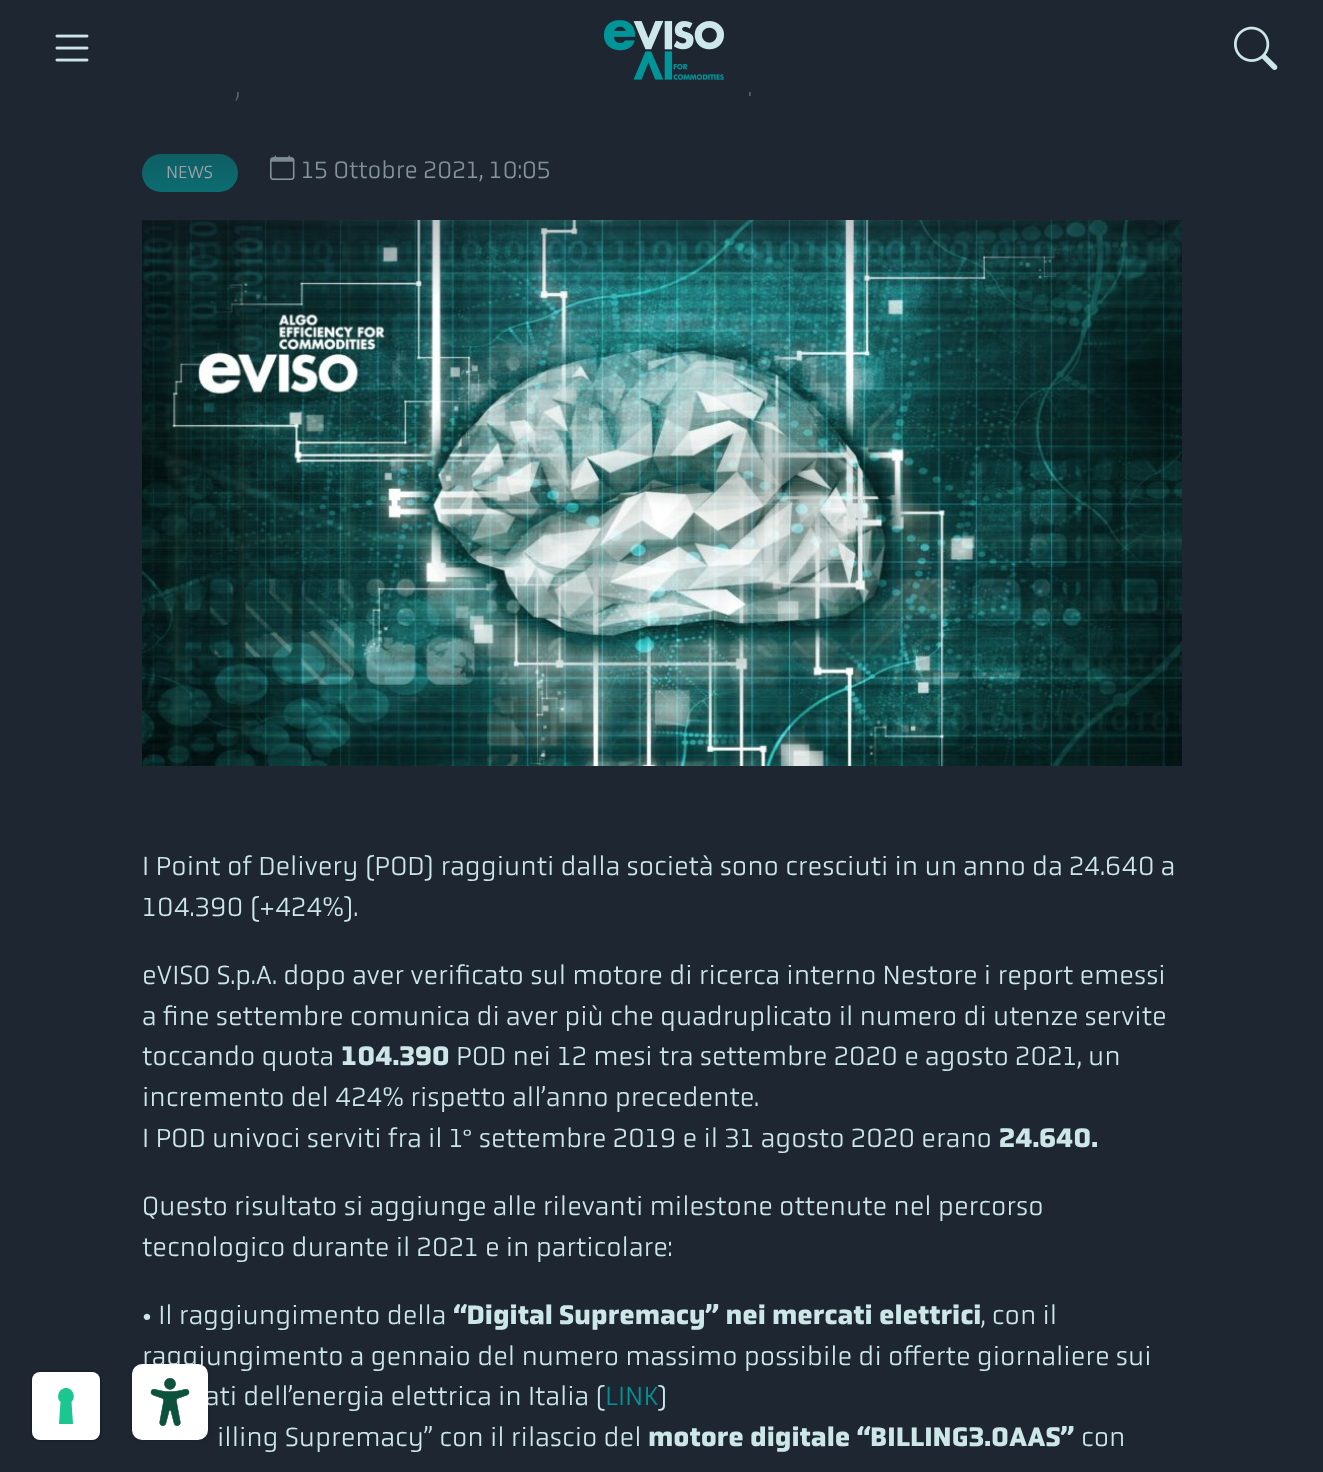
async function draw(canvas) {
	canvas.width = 1323;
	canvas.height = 1472;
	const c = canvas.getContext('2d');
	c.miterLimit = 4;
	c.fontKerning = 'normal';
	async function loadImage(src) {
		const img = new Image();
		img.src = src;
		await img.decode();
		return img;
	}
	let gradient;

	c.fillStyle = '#1e2632';
	c.fillRect(0, 0, 1323, 1472);
	c.drawImage(await loadImage('img1.png'), 55, 34, 34, 28);
	c.drawImage(await loadImage('img2.png'), 604, 20, 120, 60);
	c.drawImage(await loadImage('img3.png'), 1234, 26, 44, 44);
	c.font = '100 34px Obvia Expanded';
	c.fillStyle = '#cde7e8';
	c.fillText(',', 235, 96);
	c.fillText('.', 747, 96);
	c.fillStyle = '#019494';
	c.beginPath();
	c.roundRect(142, 154, 96, 38, 19);
	c.fill();
	c.font = '300 18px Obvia';
	c.fillStyle = '#fff';
	c.fillText('NEWS', 166, 178);
	c.drawImage(await loadImage('img4.png'), 270, 155, 25, 25);
	c.font = '300 24.5px Obvia';
	c.fillStyle = '#cde7e8';
	c.fillText('15 Ottobre 2021, 10:05', 301, 178);
	c.drawImage(await loadImage('img5.png'), 142, 220, 1040, 546);
	gradient = c.createLinearGradient(662, 300, 662, 0);
	gradient.addColorStop(0, '#1e263200');
	gradient.addColorStop(1, '#1e2632');
	c.fillStyle = gradient;
	c.fillRect(142, 92, 1040, 202);
	c.font = '300 27.2px Obvia';
	c.fillStyle = '#cde7e8';
	for (const [text, x, y] of [
		['I Point of Delivery (POD) raggiunti dalla società sono cresciuti in un anno da 24.640 a', 142, 875],
		['104.390 (+424%).', 142, 916],
		['eVISO S.p.A. dopo aver verificato sul motore di ricerca interno Nestore i report emessi', 142, 984],
		['a fine settembre comunica di aver più che quadruplicato il numero di utenze servite', 142, 1025],
		['toccando quota', 142, 1065],
	]) {
		c.fillText(text, x, y);
	}
	c.font = 'bold 27.2px Obvia';
	c.fillText('104.390', 341, 1065);
	c.font = '300 27.2px Obvia';
	for (const [text, x, y] of [
		['POD nei 12 mesi tra settembre 2020 e agosto 2021, un', 456, 1065],
		['incremento del 424% rispetto all’anno precedente.', 142, 1106],
		['I POD univoci serviti fra il 1° settembre 2019 e il 31 agosto 2020 erano', 142, 1147],
	]) {
		c.fillText(text, x, y);
	}
	c.font = 'bold 27.2px Obvia';
	c.fillText('24.640.', 999, 1147);
	c.font = '300 27.2px Obvia';
	for (const [text, x, y] of [
		['Questo risultato si aggiunge alle rilevanti milestone ottenute nel percorso', 142, 1215],
		['tecnologico durante il 2021 e in particolare:', 142, 1256],
		['• Il raggiungimento della', 142, 1324],
	]) {
		c.fillText(text, x, y);
	}
	c.font = 'bold 27.2px Obvia';
	c.fillText('“Digital Supremacy” nei mercati elettrici', 453, 1324);
	c.font = '300 27.2px Obvia';
	for (const [text, x, y] of [
		[', con il', 981, 1324],
		['raggiungimento a gennaio del numero massimo possibile di offerte giornaliere sui', 142, 1365],
		['ati dell’energia elettrica in Italia (', 205, 1405],
	]) {
		c.fillText(text, x, y);
	}
	c.fillStyle = '#019494';
	c.fillText('LINK', 605, 1405);
	c.fillStyle = '#cde7e8';
	c.fillText(')', 658, 1405);
	c.fillText('illing Supremacy” con il rilascio del', 217, 1446);
	c.font = 'bold 27.2px Obvia';
	c.fillText('motore digitale “BILLING3.0AAS”', 648, 1446);
	c.font = '300 27.2px Obvia';
	c.fillText('con', 1081, 1446);
	c.beginPath();
	c.roundRect(31, 1371, 70, 70, 9);
	c.strokeStyle = '#1a202b';
	c.lineWidth = 2;
	c.stroke();
	c.fillStyle = '#fff';
	c.beginPath();
	c.roundRect(32, 1372, 68, 68, 8);
	c.fill();
	c.fillStyle = '#1cc691';
	c.beginPath();
	c.moveTo(66, 1388);
	c.bezierCurveTo(73, 1388, 76.5, 1397.5, 71.5, 1402);
	c.lineTo(73, 1424);
	c.lineTo(59, 1424);
	c.lineTo(60.5, 1402);
	c.bezierCurveTo(55.5, 1397.5, 59, 1388, 66, 1388);
	c.closePath();
	c.fill('evenodd');
	c.fillStyle = '#00000033';
	c.filter = 'blur(2px)';
	c.beginPath();
	c.roundRect(132, 1364, 76, 76, 10);
	c.fill();
	c.filter = 'none';
	c.fillStyle = '#fff';
	c.beginPath();
	c.roundRect(132, 1364, 76, 76, 10);
	c.fill();
	c.drawImage(await loadImage('img6.png'), 150, 1378, 40, 48);
}

draw(document.querySelector('canvas'));
